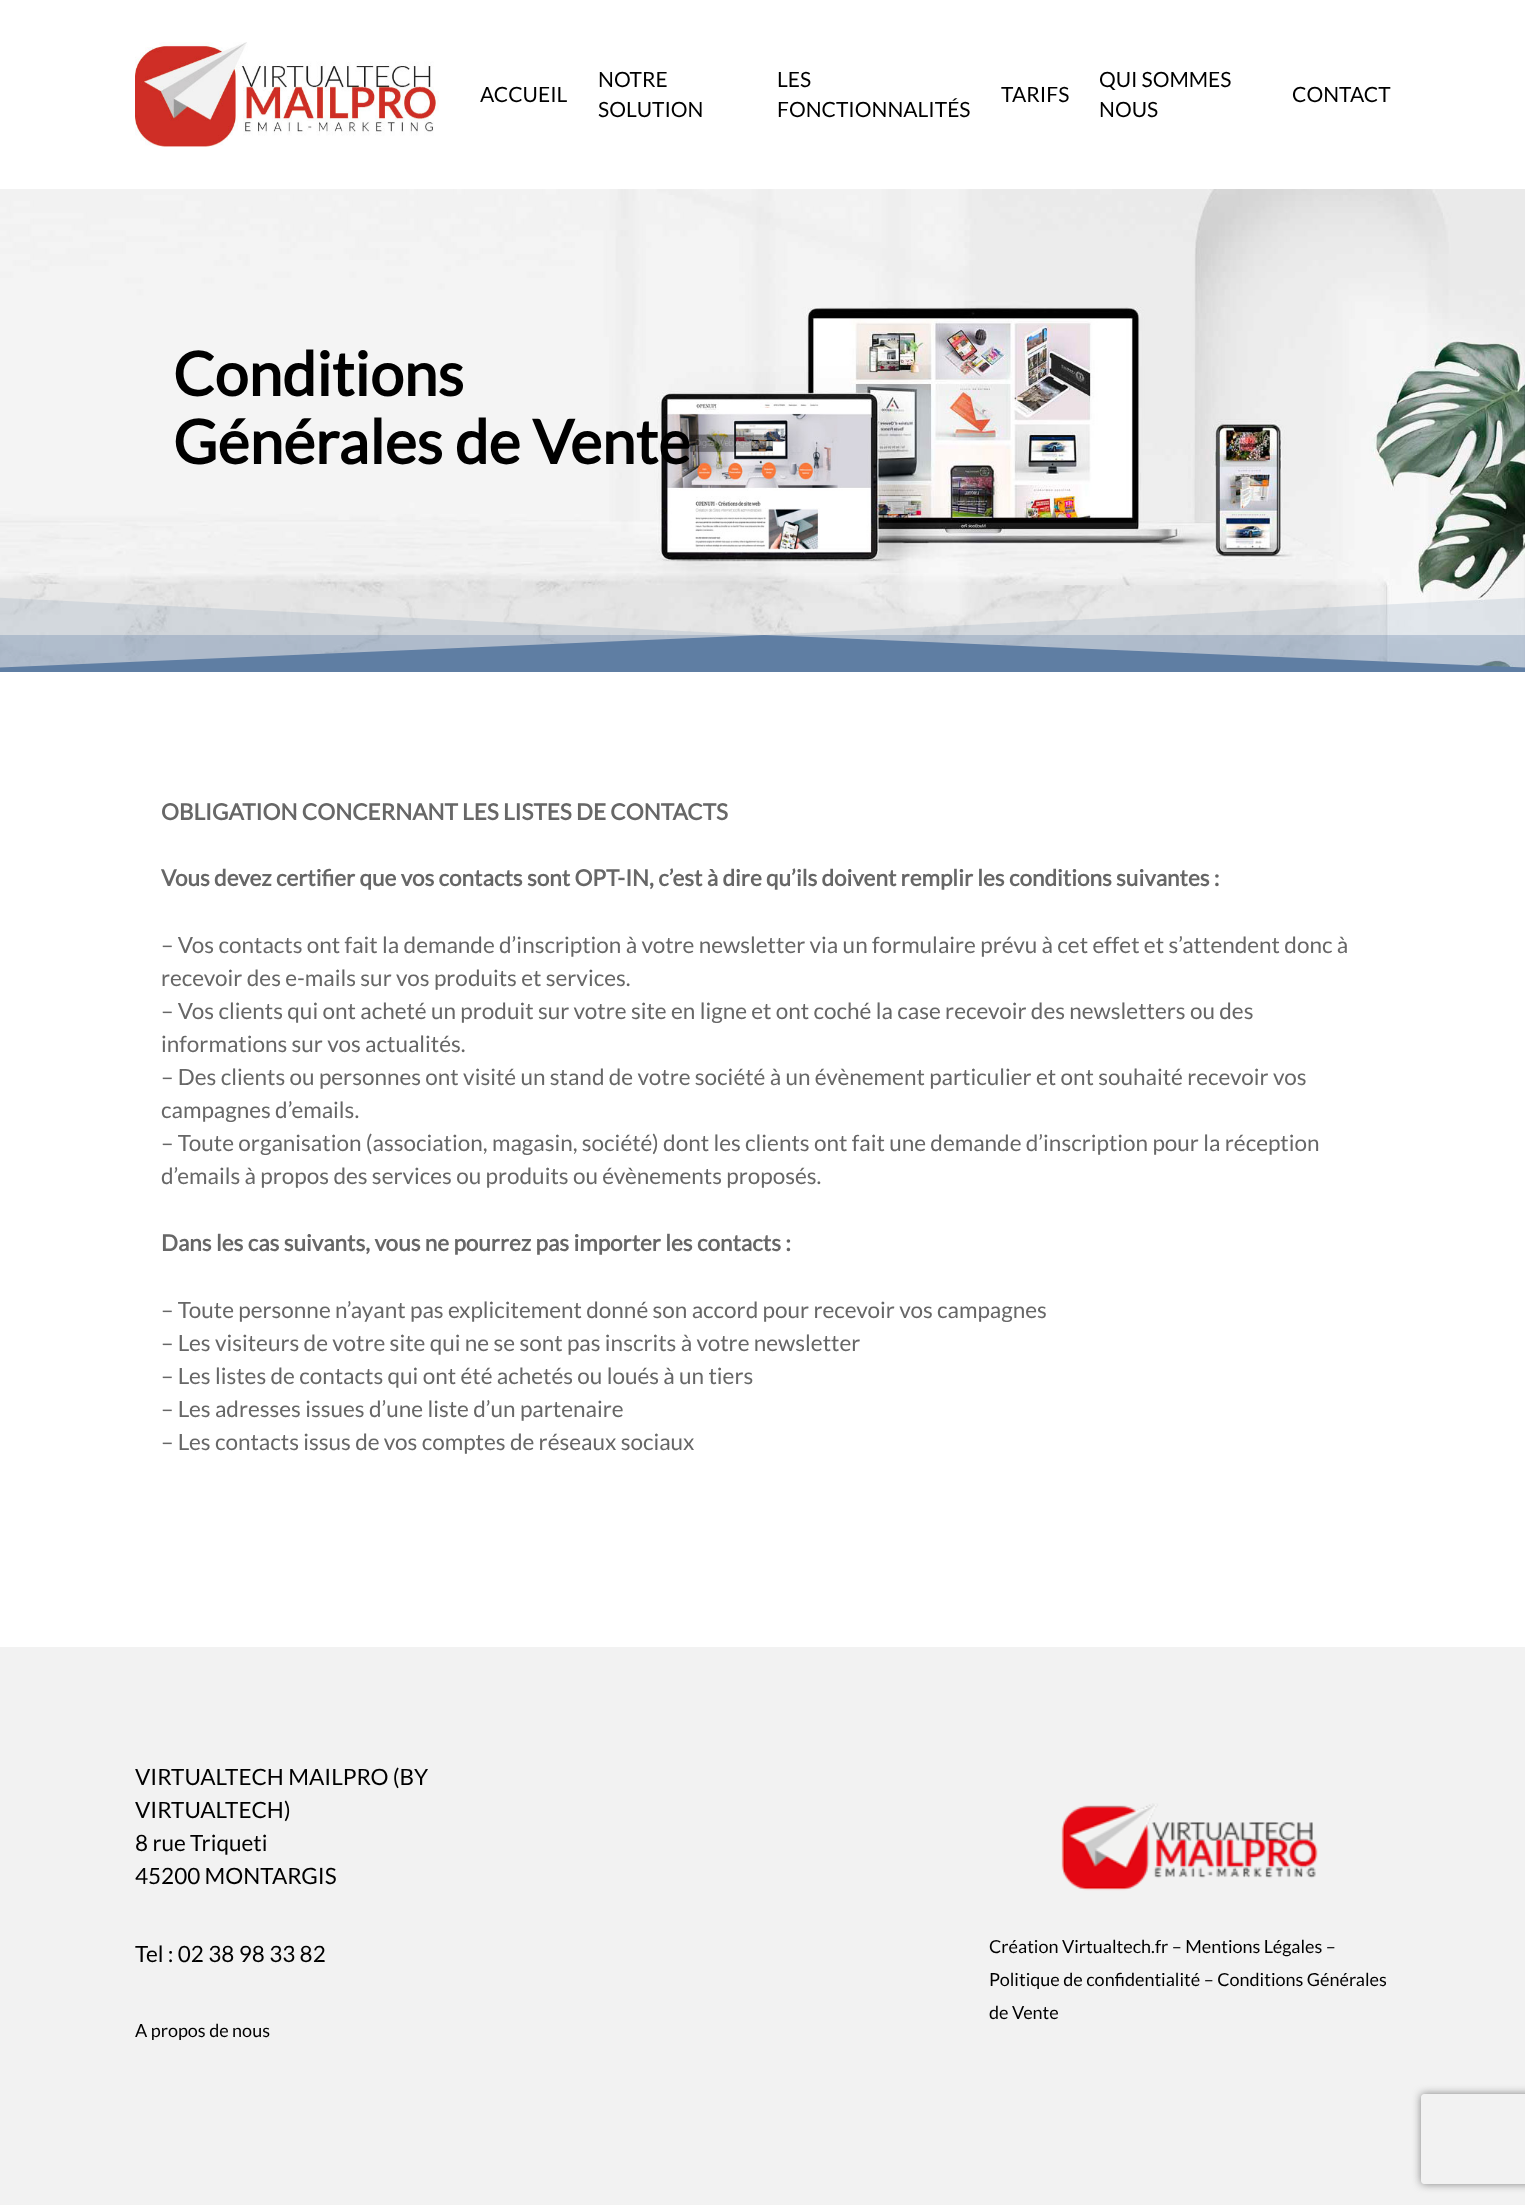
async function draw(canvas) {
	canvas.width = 1525;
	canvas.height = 2205;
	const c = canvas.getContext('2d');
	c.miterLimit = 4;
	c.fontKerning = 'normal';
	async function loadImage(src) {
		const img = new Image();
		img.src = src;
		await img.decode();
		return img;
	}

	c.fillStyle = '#fff';
	c.fillRect(0, 0, 1525, 2205);
	c.drawImage(await loadImage('img1.png'), 135, 42, 304, 105);
	c.font = '21px Lato';
	c.fillStyle = '#000';
	for (const [text, x, y] of [
		['ACCUEIL', 480, 102],
		['NOTRE', 598, 87],
		['SOLUTION', 598, 117],
		['LES', 777, 87],
		['FONCTIONNALITÉS', 777, 117],
		['TARIFS', 1001, 102],
		['QUI SOMMES', 1099, 87],
		['NOUS', 1099, 117],
		['CONTACT', 1292, 102],
	]) {
		c.fillText(text, x, y);
	}
	c.drawImage(await loadImage('img2.png'), 0, 189, 1525, 479);
	c.font = 'bold 60.75px Lato';
	c.fillText('Conditions', 173, 396);
	c.fillText('Générales de Vente', 173, 464);
	c.save();
	c.beginPath();
	c.rect(0, 597, 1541, 75);
	c.clip();
	c.fillStyle = '#607ea4';
	c.beginPath();
	c.moveTo(764, 635);
	c.lineTo(-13, 668);
	c.lineTo(-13, 673);
	c.lineTo(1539, 673);
	c.lineTo(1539, 668);
	c.closePath();
	c.fill();
	c.restore();
	c.fillStyle = '#607ea426';
	c.beginPath();
	c.moveTo(764, 635);
	c.lineTo(-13, 597);
	c.lineTo(-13, 672);
	c.lineTo(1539, 672);
	c.lineTo(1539, 597);
	c.closePath();
	c.fill();
	c.fillStyle = '#607ea44d';
	c.fillRect(0, 635, 1525, 33);
	c.font = 'bold 22.5px Lato';
	c.fillStyle = '#676767';
	c.fillText('OBLIGATION CONCERNANT LES LISTES DE CONTACTS', 161, 820);
	c.fillText('Vous devez certifier que vos contacts sont OPT-IN, c’est à dire qu’ils doivent remplir les conditions suivantes :', 161, 886);
	c.font = '22.5px Lato';
	for (const [text, x, y] of [
		['– Vos contacts ont fait la demande d’inscription à votre newsletter via un formulaire prévu à cet effet et s’attendent donc à', 161, 953],
		['recevoir des e-mails sur vos produits et services.', 161, 986],
		['– Vos clients qui ont acheté un produit sur votre site en ligne et ont coché la case recevoir des newsletters ou des', 161, 1019],
		['informations sur vos actualités.', 161, 1052],
		['– Des clients ou personnes ont visité un stand de votre société à un évènement particulier et ont souhaité recevoir vos', 161, 1085],
		['campagnes d’emails.', 161, 1118],
		['– Toute organisation (association, magasin, société) dont les clients ont fait une demande d’inscription pour la réception', 161, 1151],
		['d’emails à propos des services ou produits ou évènements proposés.', 161, 1184],
	]) {
		c.fillText(text, x, y);
	}
	c.font = 'bold 22.5px Lato';
	c.fillText('Dans les cas suivants, vous ne pourrez pas importer les contacts :', 161, 1251);
	c.font = '22.5px Lato';
	for (const [text, x, y] of [
		['– Toute personne n’ayant pas explicitement donné son accord pour recevoir vos campagnes', 161, 1318],
		['– Les visiteurs de votre site qui ne se sont pas inscrits à votre newsletter', 161, 1351],
		['– Les listes de contacts qui ont été achetés ou loués à un tiers', 161, 1384],
		['– Les adresses issues d’une liste d’un partenaire', 161, 1417],
		['– Les contacts issus de vos comptes de réseaux sociaux', 161, 1450],
	]) {
		c.fillText(text, x, y);
	}
	c.fillStyle = '#f2f2f2';
	c.fillRect(0, 1647, 1525, 558);
	c.fillStyle = '#000';
	for (const [text, x, y] of [
		['VIRTUALTECH MAILPRO (BY', 135, 1785],
		['VIRTUALTECH)', 135, 1818],
		['8 rue Triqueti', 135, 1851],
		['45200 MONTARGIS', 135, 1884],
		['Tel : 02 38 98 33 82', 135, 1962],
	]) {
		c.fillText(text, x, y);
	}
	c.font = '18px Lato';
	c.fillText('A propos de nous', 135, 2037);
	c.drawImage(await loadImage('img3.png'), 1061, 1803, 257, 88);
	for (const [text, x, y] of [
		['Création Virtualtech.fr – Mentions Légales –', 989, 1953],
		['Politique de confidentialité – Conditions Générales', 989, 1986],
		['de Vente', 989, 2019],
	]) {
		c.fillText(text, x, y);
	}
	c.save();
	c.beginPath();
	c.moveTo(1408, 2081);
	c.lineTo(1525, 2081);
	c.lineTo(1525, 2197);
	c.lineTo(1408, 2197);
	c.closePath();
	c.moveTo(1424, 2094);
	c.lineTo(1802, 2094);
	c.bezierCurveTo(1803.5, 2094, 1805, 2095.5, 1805, 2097);
	c.lineTo(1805, 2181);
	c.bezierCurveTo(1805, 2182.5, 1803.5, 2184, 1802, 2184);
	c.lineTo(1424, 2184);
	c.bezierCurveTo(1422.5, 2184, 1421, 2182.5, 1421, 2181);
	c.lineTo(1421, 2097);
	c.bezierCurveTo(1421, 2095.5, 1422.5, 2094, 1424, 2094);
	c.closePath();
	c.clip('evenodd');
	c.fillStyle = '#808080';
	c.filter = 'blur(4px)';
	c.beginPath();
	c.roundRect(1421, 2094, 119, 90, 3);
	c.fill();
	c.filter = 'none';
	c.restore();
}

draw(document.querySelector('canvas'));
